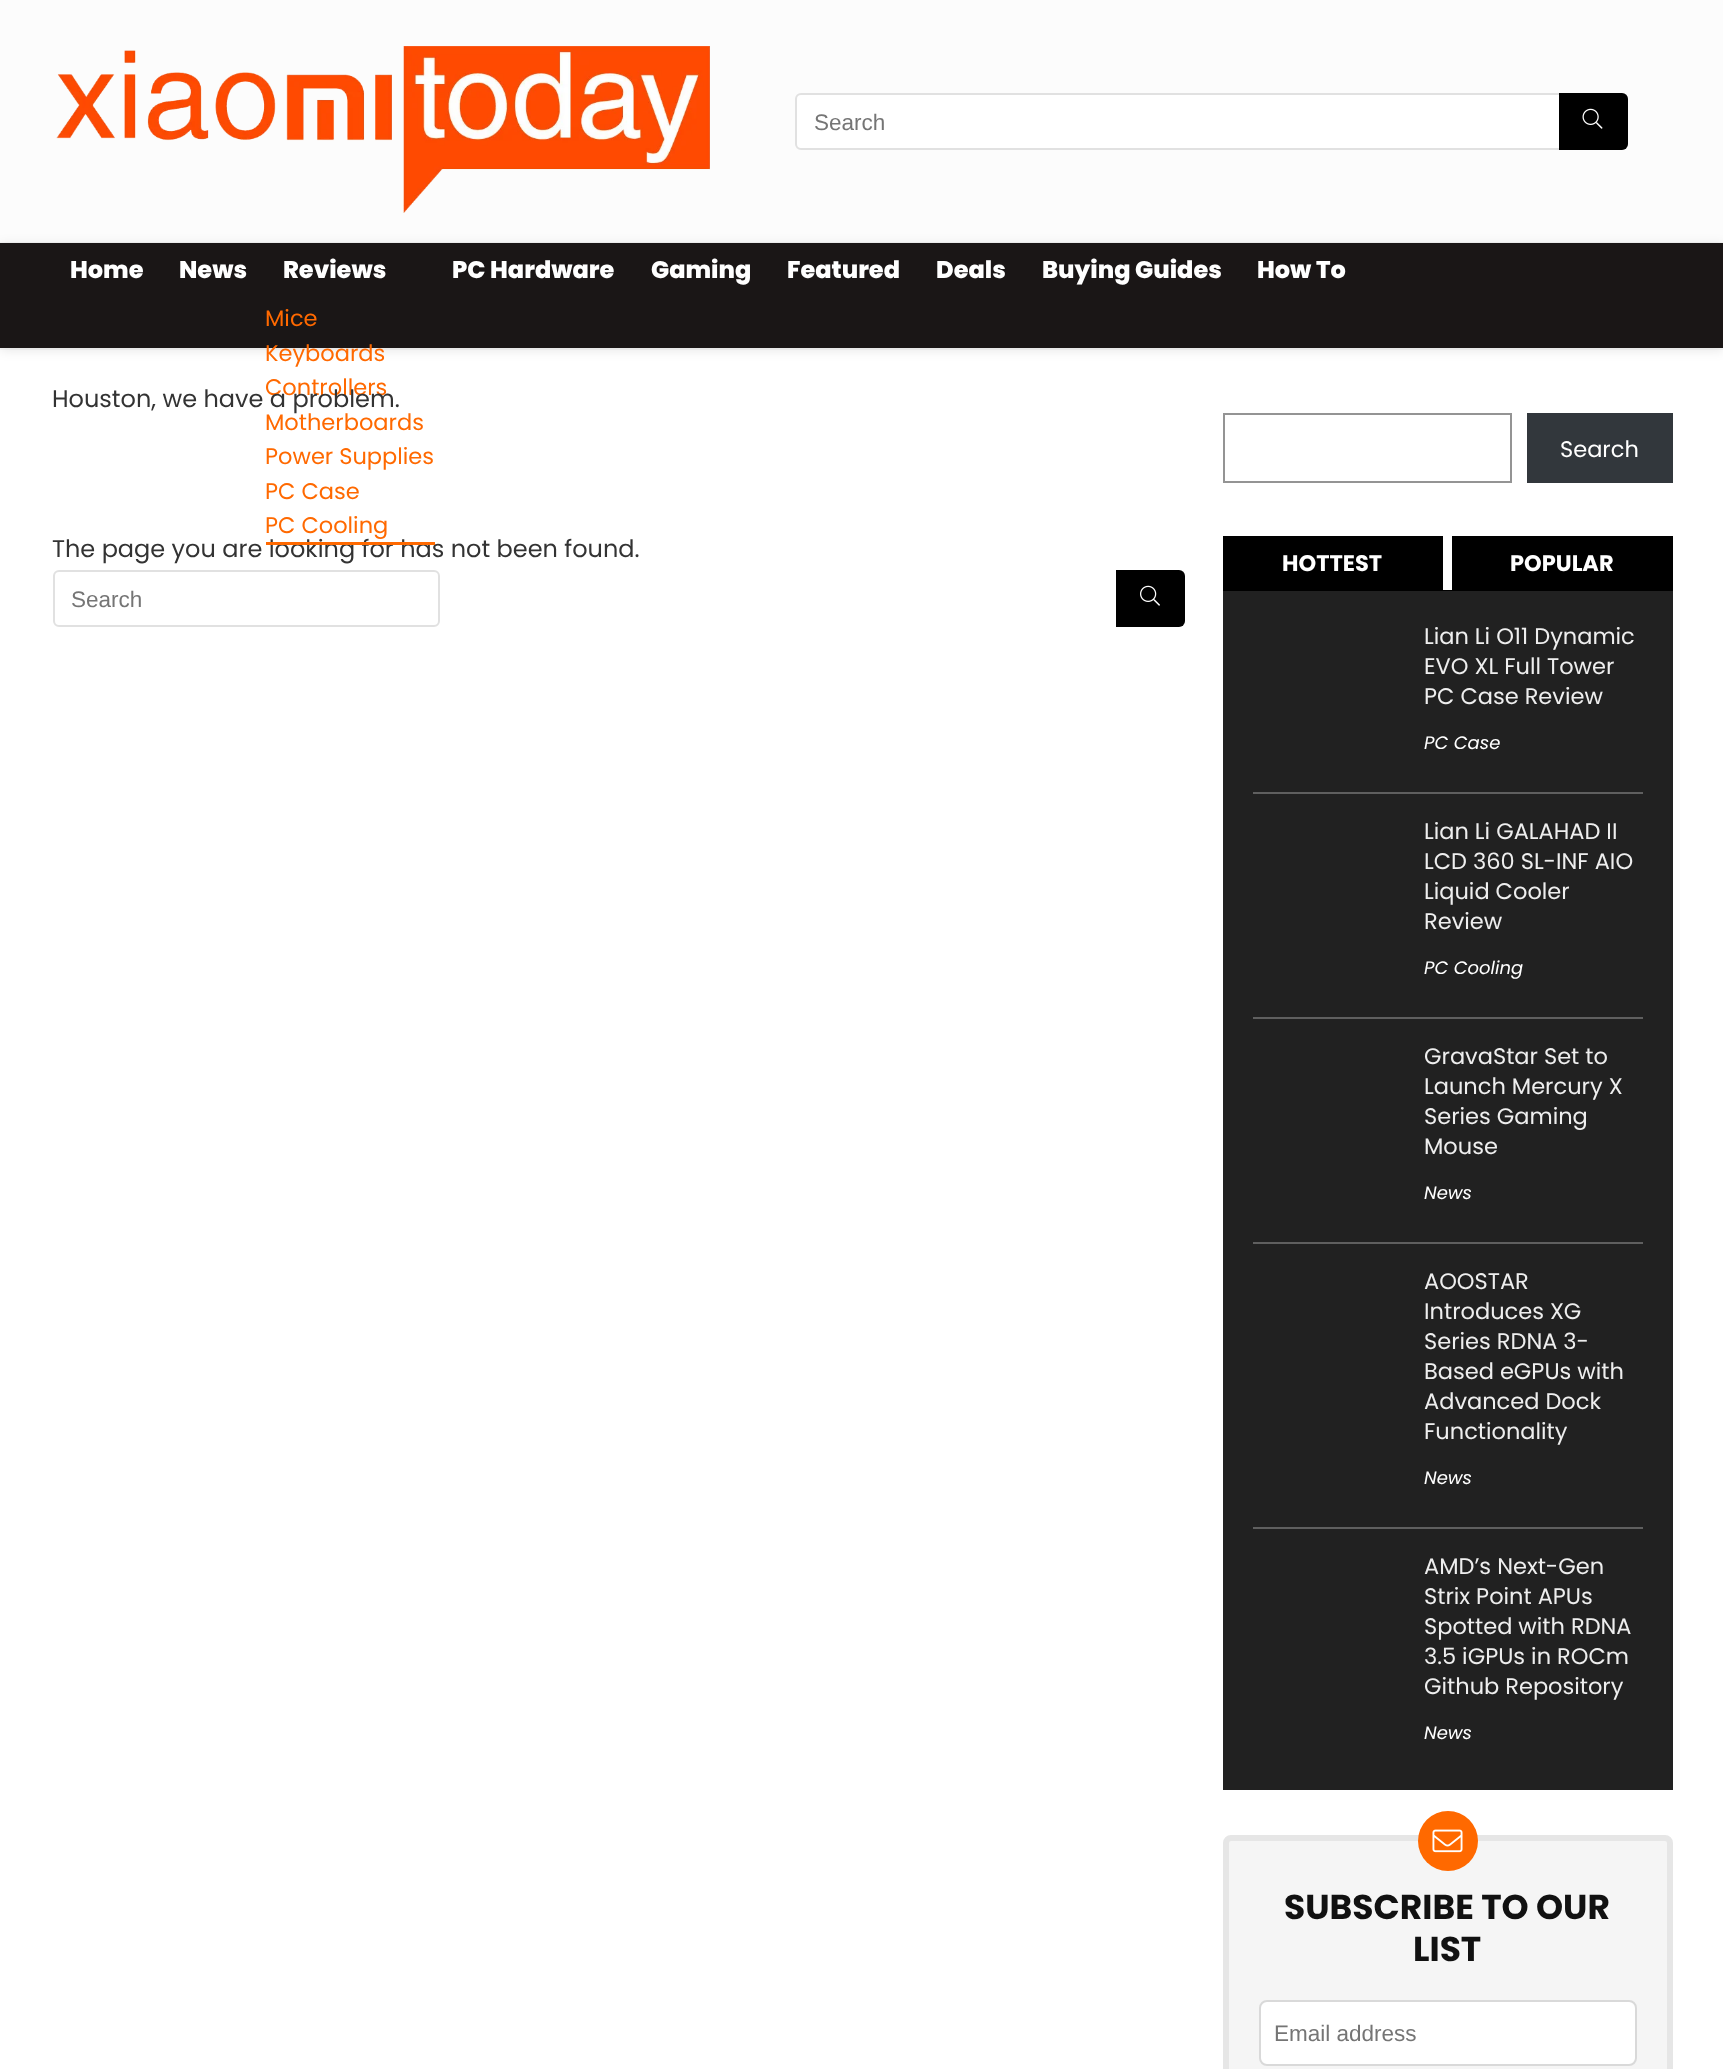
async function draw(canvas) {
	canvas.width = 1723;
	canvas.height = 2069;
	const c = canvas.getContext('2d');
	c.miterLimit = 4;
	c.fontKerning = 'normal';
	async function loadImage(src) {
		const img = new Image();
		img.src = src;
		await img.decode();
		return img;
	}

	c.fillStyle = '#fff';
	c.fillRect(0, 0, 1723, 2069);
	c.fillStyle = '#fcfcfc';
	c.fillRect(0, 0, 1723, 243);
	c.drawImage(await loadImage('img1.png'), 56, 46, 654, 167);
	c.fillStyle = '#fff';
	c.beginPath();
	c.roundRect(796, 94, 831, 55, 5);
	c.fill();
	c.strokeStyle = '#e1e1e1';
	c.lineWidth = 2;
	c.stroke();
	c.font = '22.5px Liberation Sans';
	c.fillStyle = '#757575';
	c.fillText('Search', 814, 130);
	c.fillStyle = '#000';
	c.beginPath();
	c.roundRect(1559, 93, 69, 57, [0, 6, 6, 0]);
	c.fill();
	c.drawImage(await loadImage('img2.png'), 1582, 108, 21, 21);
	c.strokeStyle = '#00000008';
	c.strokeRect(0, 243, 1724, 106);
	c.fillStyle = '#0000001a';
	c.filter = 'blur(6px)';
	c.beginPath();
	c.rect(0, 245, 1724, 105);
	c.fill();
	c.filter = 'none';
	c.fillStyle = '#1a1616';
	c.fillRect(0, 243, 1723, 105);
	c.font = '800 24px Poppins';
	c.fillStyle = '#fff';
	for (const [text, x, y] of [
		['Home', 70, 278],
		['News', 179, 278],
		['Reviews', 283, 278],
	]) {
		c.fillText(text, x, y);
	}
	c.font = '24px Poppins';
	c.fillStyle = '#333';
	c.fillText('The page you are looking for has not been found.', 52, 557);
	c.fillStyle = '#ff6900';
	c.fillRect(266, 542, 169, 3);
	c.font = '22.5px Poppins';
	for (const [text, x, y] of [
		['Mice', 265, 326],
		['Keyboards', 265, 361],
		['Controllers', 265, 395],
		['Motherboards', 265, 430],
		['Power Supplies', 265, 464],
		['PC Case', 265, 499],
		['PC Cooling', 265, 533],
	]) {
		c.fillText(text, x, y);
	}
	c.font = '800 24px Poppins';
	c.fillStyle = '#fff';
	for (const [text, x, y] of [
		['PC Hardware', 452, 278],
		['Gaming', 651, 278],
		['Featured', 787, 278],
		['Deals', 936, 278],
		['Buying Guides', 1042, 278],
		['How To', 1257, 278],
	]) {
		c.fillText(text, x, y);
	}
	c.font = '24px Poppins';
	c.fillStyle = '#333';
	c.fillText('Houston, we have a problem.', 52, 407);
	c.beginPath();
	c.roundRect(54, 571, 385, 55, 5);
	c.strokeStyle = '#e1e1e1';
	c.stroke();
	c.font = '22.5px Liberation Sans';
	c.fillStyle = '#757575';
	c.fillText('Search', 71, 607);
	c.fillStyle = '#000';
	c.beginPath();
	c.roundRect(1116, 570, 69, 57, [0, 6, 6, 0]);
	c.fill();
	c.drawImage(await loadImage('img3.png'), 1140, 585, 20, 21);
	c.strokeStyle = '#949494';
	c.strokeRect(1224, 414, 287, 68);
	c.fillStyle = '#32373c';
	c.fillRect(1527, 413, 146, 70);
	c.font = '22.5px Poppins';
	c.fillStyle = '#fff';
	c.fillText('Search', 1560, 457);
	c.fillStyle = '#000';
	c.fillRect(1223, 590, 450, 1);
	c.fillRect(1223, 536, 220, 54);
	c.font = 'bold 22.5px Poppins';
	c.fillStyle = '#fff';
	c.fillText('HOTTEST', 1282, 571);
	c.fillStyle = '#000';
	c.fillRect(1452, 536, 221, 54);
	c.fillStyle = '#fff';
	c.fillText('POPULAR', 1510, 571);
	c.fillStyle = '#212121';
	c.fillRect(1223, 591, 450, 1199);
	c.fillStyle = '#5f5f5f';
	c.fillRect(1253, 792, 390, 2);
	c.font = '22.5px Poppins';
	c.fillStyle = '#eee';
	for (const [text, x, y] of [
		['Lian Li O11 Dynamic', 1424, 644],
		['EVO XL Full Tower', 1424, 674],
		['PC Case Review', 1424, 704],
	]) {
		c.fillText(text, x, y);
	}
	c.font = 'italic 18px Poppins';
	c.fillStyle = '#fff';
	c.fillText('PC Case', 1424, 749);
	c.fillStyle = '#5f5f5f';
	c.fillRect(1253, 1017, 390, 2);
	c.font = '22.5px Poppins';
	c.fillStyle = '#eee';
	for (const [text, x, y] of [
		['Lian Li GALAHAD II', 1424, 839],
		['LCD 360 SL-INF AIO', 1424, 869],
		['Liquid Cooler', 1424, 899],
		['Review', 1424, 929],
	]) {
		c.fillText(text, x, y);
	}
	c.font = 'italic 18px Poppins';
	c.fillStyle = '#fff';
	c.fillText('PC Cooling', 1424, 974);
	c.fillStyle = '#5f5f5f';
	c.fillRect(1253, 1242, 390, 2);
	c.font = '22.5px Poppins';
	c.fillStyle = '#eee';
	for (const [text, x, y] of [
		['GravaStar Set to', 1424, 1064],
		['Launch Mercury X', 1424, 1094],
		['Series Gaming', 1424, 1124],
		['Mouse', 1424, 1154],
	]) {
		c.fillText(text, x, y);
	}
	c.font = 'italic 18px Poppins';
	c.fillStyle = '#fff';
	c.fillText('News', 1424, 1199);
	c.fillStyle = '#5f5f5f';
	c.fillRect(1253, 1527, 390, 2);
	c.font = '22.5px Poppins';
	c.fillStyle = '#eee';
	for (const [text, x, y] of [
		['AOOSTAR', 1424, 1289],
		['Introduces XG', 1424, 1319],
		['Series RDNA 3-', 1424, 1349],
		['Based eGPUs with', 1424, 1379],
		['Advanced Dock', 1424, 1409],
		['Functionality', 1424, 1439],
	]) {
		c.fillText(text, x, y);
	}
	c.font = 'italic 18px Poppins';
	c.fillStyle = '#fff';
	c.fillText('News', 1424, 1484);
	c.font = '22.5px Poppins';
	c.fillStyle = '#eee';
	for (const [text, x, y] of [
		['AMD’s Next-Gen', 1424, 1574],
		['Strix Point APUs', 1424, 1604],
		['Spotted with RDNA', 1424, 1634],
		['3.5 iGPUs in ROCm', 1424, 1664],
		['Github Repository', 1424, 1694],
	]) {
		c.fillText(text, x, y);
	}
	c.font = 'italic 18px Poppins';
	c.fillStyle = '#fff';
	c.fillText('News', 1424, 1739);
	c.fillStyle = '#f5f5f5';
	c.beginPath();
	c.roundRect(1226, 1838, 444, 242, 5);
	c.fill();
	c.strokeStyle = '#e6e6e6';
	c.lineWidth = 6;
	c.stroke();
	c.fillStyle = '#ff6900';
	c.beginPath();
	c.arc(1448, 1841, 30, 0, 2 * Math.PI);
	c.fill();
	c.drawImage(await loadImage('img4.png'), 1432, 1829, 31, 24);
	c.font = 'bold 34.5px Poppins';
	c.fillStyle = '#111';
	c.fillText('SUBSCRIBE TO OUR', 1284, 1919);
	c.fillText('LIST', 1413, 1961);
	c.fillStyle = '#fff';
	c.beginPath();
	c.roundRect(1260, 2001, 376, 64, 7);
	c.fill();
	c.strokeStyle = '#d9d9d9';
	c.lineWidth = 2;
	c.stroke();
	c.font = '22.5px Liberation Sans';
	c.fillStyle = '#757575';
	c.fillText('Email address', 1274, 2041);
}

draw(document.querySelector('canvas'));
